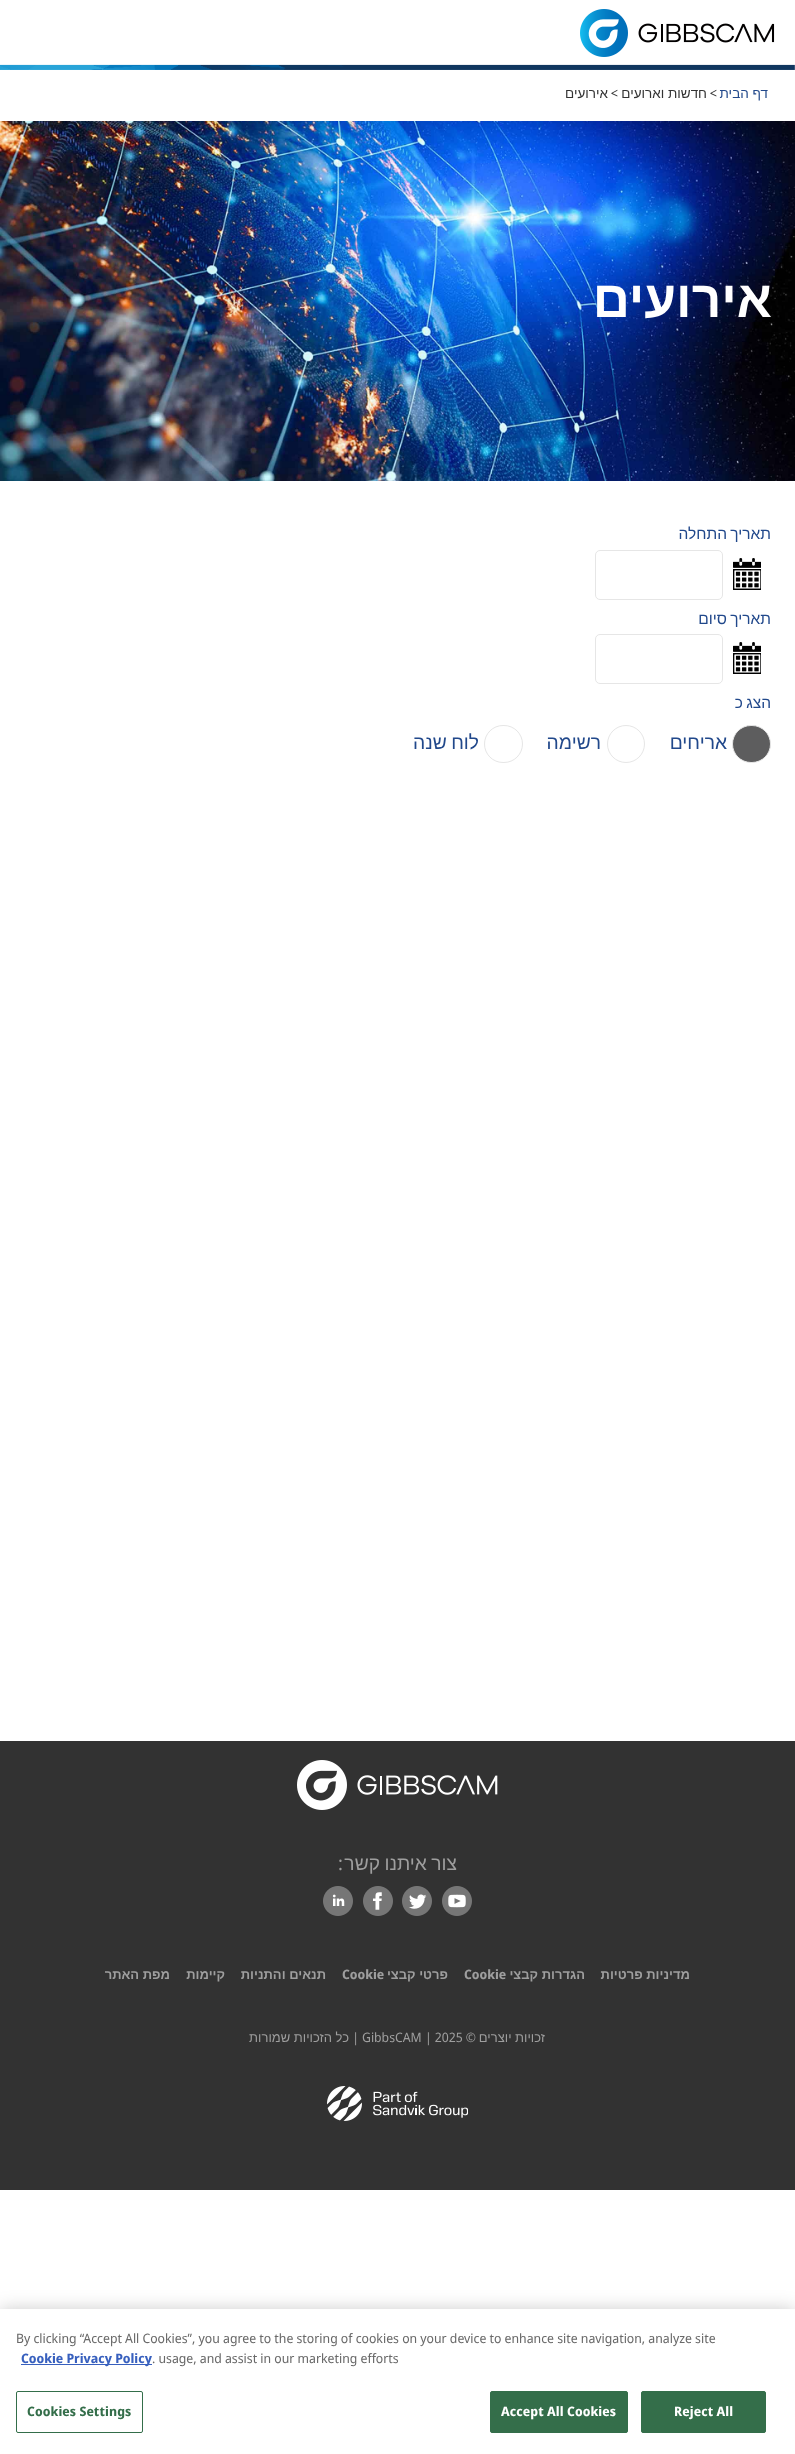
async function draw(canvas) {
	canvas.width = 795;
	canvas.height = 2454;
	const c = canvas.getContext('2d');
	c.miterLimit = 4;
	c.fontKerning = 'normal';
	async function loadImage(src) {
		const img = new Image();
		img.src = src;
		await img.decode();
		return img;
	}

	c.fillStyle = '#fff';
	c.fillRect(0, 0, 795, 2454);
	c.drawImage(await loadImage('img1.png'), 0, 64, 795, 6);
	c.drawImage(await loadImage('img2.png'), 580, 9, 195, 48);
	c.direction = 'rtl';
	c.font = '13.5px Liberation Sans';
	c.fillStyle = '#333';
	c.fillText('אירועים', 608, 98);
	c.font = '13.5px Noto Sans Display';
	c.fillText('>', 618, 98);
	c.font = '13.5px Liberation Sans';
	c.fillText('חדשות וארועים', 707, 98);
	c.font = '13.5px Noto Sans Display';
	c.fillText('>', 717, 98);
	c.font = '13.5px Liberation Sans';
	c.fillStyle = '#21488b';
	c.fillText('דף הבית', 768, 98);
	c.drawImage(await loadImage('img3.png'), 0, 121, 795, 360);
	c.font = 'bold 51.5px Liberation Sans';
	c.fillStyle = '#fff';
	c.fillText('אירועים', 772, 317);
	c.wordSpacing = '-1px';
	c.font = '15.5px Liberation Sans';
	c.fillStyle = '#21488b';
	c.fillText('תאריך התחלה', 771, 539);
	c.beginPath();
	c.roundRect(595.5, 550.5, 127, 49, 4.5);
	c.strokeStyle = '#e6e6e6';
	c.stroke();
	c.drawImage(await loadImage('img4.png'), 733, 558, 28, 32);
	c.fillText('תאריך סיום', 771, 624);
	c.beginPath();
	c.roundRect(595.5, 634.5, 127, 49, 4.5);
	c.stroke();
	c.drawImage(await loadImage('img4.png'), 733, 642, 28, 32);
	c.fillText('הצג כ', 771, 708);
	c.font = '19.25px Liberation Sans';
	c.fillText('לוח שנה', 479, 749);
	c.beginPath();
	c.roundRect(484.5, 725.5, 38, 37, 18.5);
	c.stroke();
	c.wordSpacing = '0px';
	c.fillText('רשימה', 601, 749);
	c.beginPath();
	c.arc(626, 744, 18.5, 0, 2 * Math.PI);
	c.stroke();
	c.fillText('אריחים', 727, 749);
	c.fillStyle = '#5d5d5e';
	c.beginPath();
	c.roundRect(732.5, 725.5, 38, 37, 18.5);
	c.fill();
	c.stroke();
	c.fillStyle = '#323232';
	c.fillRect(0, 1741, 795, 449);
	c.drawImage(await loadImage('img5.png'), 297, 1760, 201, 50);
	c.font = '19.25px Noto Sans Display';
	c.fillStyle = '#9e9e9e';
	c.fillText(':', 343, 1870);
	c.wordSpacing = '-1px';
	c.font = '19.25px Liberation Sans';
	c.fillText('צור איתנו קשר', 457, 1870);
	c.fillStyle = '#fff';
	c.beginPath();
	c.arc(337.5, 1900.5, 12.5, 0, 2 * Math.PI);
	c.fill();
	c.drawImage(await loadImage('img6.png'), 323, 1886, 30, 30);
	c.beginPath();
	c.arc(377.5, 1900.5, 12.5, 0, 2 * Math.PI);
	c.fill();
	c.drawImage(await loadImage('img7.png'), 363, 1886, 30, 30);
	c.beginPath();
	c.arc(417.5, 1900.5, 12.5, 0, 2 * Math.PI);
	c.fill();
	c.drawImage(await loadImage('img8.png'), 402, 1886, 30, 30);
	c.beginPath();
	c.arc(457.5, 1900.5, 12.5, 0, 2 * Math.PI);
	c.fill();
	c.drawImage(await loadImage('img9.png'), 442, 1886, 30, 30);
	c.wordSpacing = '0px';
	c.font = 'bold 13px Liberation Sans';
	c.fillStyle = '#9e9e9e';
	for (const [text, x, y] of [
		['מפת האתר', 170, 1979],
		['קיימות', 225, 1979],
		['תנאים והתניות', 326, 1979],
	]) {
		c.fillText(text, x, y);
	}
	c.direction = 'ltr';
	c.font = 'bold 13px Noto Sans Display';
	c.fillText('Cookie', 342, 1979);
	c.direction = 'rtl';
	c.font = 'bold 13px Liberation Sans';
	c.fillText('פרטי קבצי', 448, 1979);
	c.direction = 'ltr';
	c.font = 'bold 13px Noto Sans Display';
	c.fillText('Cookie', 464, 1979);
	c.direction = 'rtl';
	c.font = 'bold 13px Liberation Sans';
	c.fillText('הגדרות קבצי', 585, 1979);
	c.fillText('מדיניות פרטיות', 690, 1979);
	c.font = '13px Liberation Sans';
	c.fillText('כל הזכויות שמורות', 349, 2042);
	c.font = '13px Noto Sans Display';
	c.fillText('|', 359, 2042);
	c.direction = 'ltr';
	c.fillText('GibbsCAM | 2025', 362, 2042);
	c.direction = 'rtl';
	c.fillText('©', 476, 2042);
	c.font = '13px Liberation Sans';
	c.fillText('זכויות יוצרים', 545, 2042);
	c.drawImage(await loadImage('img10.png'), 327, 2086, 141, 35);
	c.fillStyle = '#00000033';
	c.filter = 'blur(9px)';
	c.beginPath();
	c.rect(0, 2309, 795, 145);
	c.fill();
	c.filter = 'none';
	c.fillStyle = '#fff';
	c.fillRect(0, 2309, 795, 145);
	c.direction = 'ltr';
	c.font = '13px Noto Sans Display';
	c.fillStyle = '#696969';
	c.fillText('By clicking “Accept All Cookies”, you agree to the storing of cookies on your device to enhance site navigation, analyze site', 16, 2343);
	c.fillStyle = '#3860be';
	c.fillRect(21, 2364, 131, 1);
	c.font = 'bold 13px Noto Sans Display';
	c.fillText('Cookie Privacy Policy', 21, 2363);
	c.font = '13px Noto Sans Display';
	c.fillStyle = '#696969';
	c.fillText('. usage, and assist in our marketing efforts', 152, 2363);
	c.beginPath();
	c.roundRect(16.5, 2391.5, 126, 41, 1.5);
	c.strokeStyle = '#346e4a';
	c.stroke();
	c.letterSpacing = '0.1px';
	c.font = 'bold 13px Noto Sans Display';
	c.fillStyle = '#346e4a';
	c.fillText('Cookies Settings', 27, 2416);
	c.beginPath();
	c.roundRect(490.5, 2391.5, 137, 41, 1.5);
	c.fill();
	c.stroke();
	c.fillStyle = '#fff';
	c.fillText('Accept All Cookies', 501, 2416);
	c.fillStyle = '#346e4a';
	c.beginPath();
	c.roundRect(641.5, 2391.5, 124, 41, 1.5);
	c.fill();
	c.stroke();
	c.fillStyle = '#fff';
	c.fillText('Reject All', 674, 2416);
}

draw(document.querySelector('canvas'));
